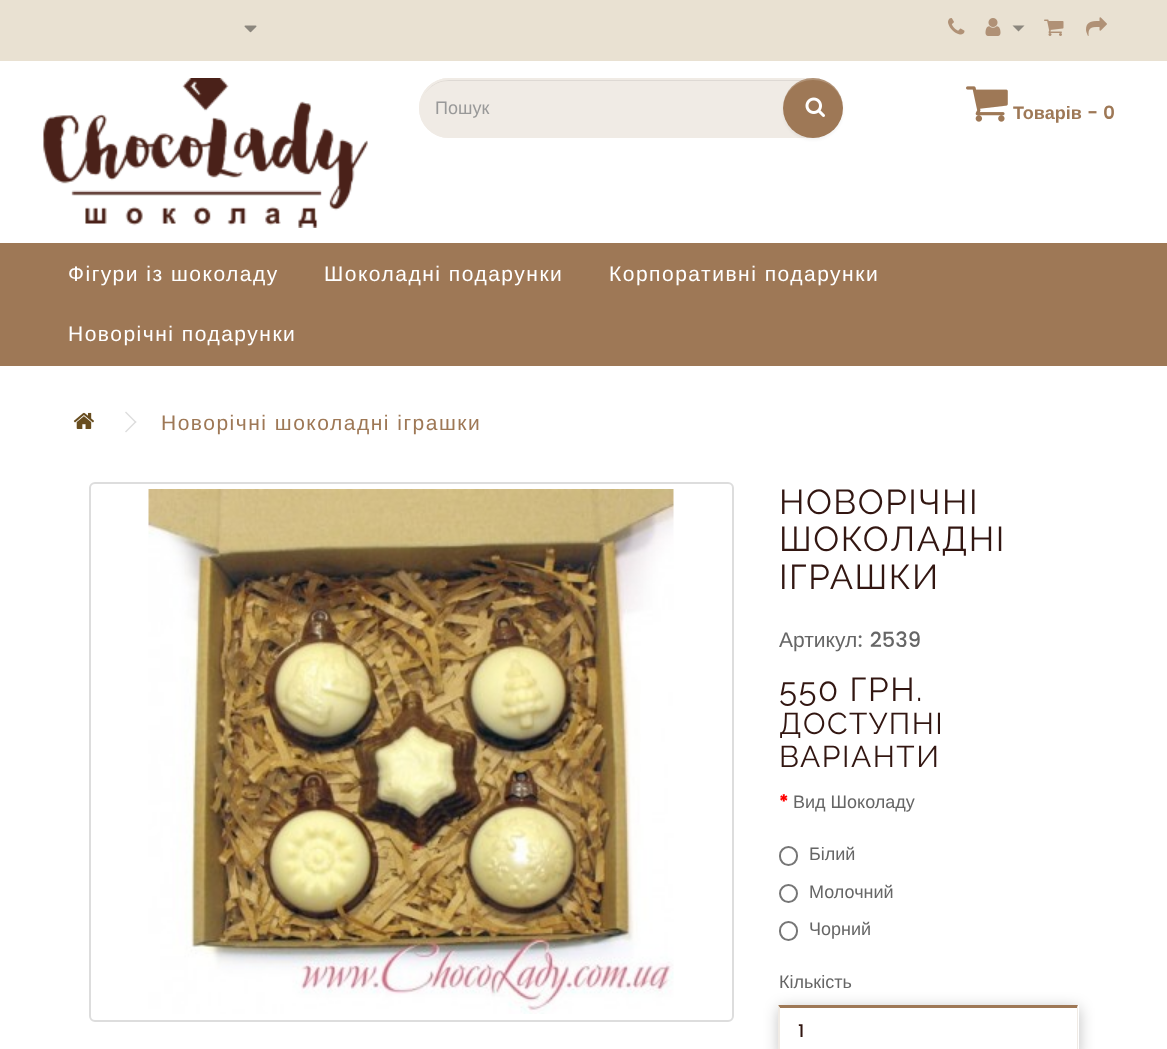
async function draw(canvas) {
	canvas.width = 1167;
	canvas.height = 1049;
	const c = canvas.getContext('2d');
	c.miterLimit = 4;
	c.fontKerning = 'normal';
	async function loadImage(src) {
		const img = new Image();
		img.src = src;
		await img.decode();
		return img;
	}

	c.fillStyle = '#fff';
	c.fillRect(0, 0, 1167, 1049);
	c.fillStyle = '#e9e1d2';
	c.fillRect(0, 0, 1167, 61);
	c.drawImage(await loadImage('img1.png'), 244, 25, 13, 8);
	c.drawImage(await loadImage('img2.png'), 948, 18, 17, 17);
	c.drawImage(await loadImage('img3.png'), 985, 18, 16, 18);
	c.fillStyle = '#8c877e';
	c.beginPath();
	c.moveTo(1012.5, 25.5);
	c.lineTo(1024.5, 25.5);
	c.lineTo(1018.5, 31.5);
	c.closePath();
	c.fill();
	c.drawImage(await loadImage('img4.png'), 1044, 19, 20, 17);
	c.drawImage(await loadImage('img5.png'), 1086, 17, 21, 19);
	c.drawImage(await loadImage('img6.png'), 43, 78, 325, 150);
	c.fillStyle = '#f0ebe5';
	c.beginPath();
	c.roundRect(419, 78, 420, 60, 30);
	c.fill();
	c.fillStyle = '#ded9d4';
	c.beginPath();
	c.moveTo(448, 81);
	c.lineTo(808, 81);
	c.bezierCurveTo(824, 81, 837, 94, 837, 109);
	c.bezierCurveTo(837, 93, 824, 80, 808, 80);
	c.lineTo(448, 80);
	c.bezierCurveTo(433, 80, 420, 93, 420, 109);
	c.bezierCurveTo(420, 94, 433, 81, 448, 81);
	c.closePath();
	c.fill();
	c.beginPath();
	c.roundRect(420, 79, 418, 58, 29);
	c.strokeStyle = '#f0ebe5';
	c.lineWidth = 2;
	c.stroke();
	c.font = '18px Liberation Sans';
	c.fillStyle = '#999';
	c.fillText('Пошук', 435, 114);
	c.fillStyle = '#0000000d';
	c.filter = 'blur(1.5px)';
	c.beginPath();
	c.roundRect(783, 80, 60, 60, 30);
	c.fill();
	c.filter = 'none';
	c.fillStyle = '#9e7856';
	c.beginPath();
	c.arc(813, 108, 30, 0, 2 * Math.PI);
	c.fill();
	c.fillStyle = '#ffffff33';
	c.beginPath();
	c.moveTo(813, 80);
	c.bezierCurveTo(830, 80, 842, 92, 843, 109);
	c.bezierCurveTo(843, 103, 841, 96, 838, 91);
	c.bezierCurveTo(821, 66, 782, 79, 783, 109);
	c.bezierCurveTo(784, 92, 796, 80, 813, 80);
	c.closePath();
	c.fill();
	c.drawImage(await loadImage('img7.png'), 805, 97, 20, 20);
	c.drawImage(await loadImage('img8.png'), 966, 86, 42, 36);
	c.font = 'bold 18px Liberation Sans';
	c.fillStyle = '#9e7856';
	c.fillText('Товарів', 1013, 119);
	c.font = 'bold 18px Poppins';
	c.fillText('- 0', 1087, 119);
	c.fillRect(0, 243, 1167, 123);
	c.letterSpacing = '1.5px';
	c.font = '21px Liberation Sans';
	c.fillStyle = '#fff';
	for (const [text, x, y] of [
		['Фігури із шоколаду', 68, 281],
		['Шоколадні подарунки', 324, 281],
		['Корпоративні подарунки', 609, 281],
		['Новорічні подарунки', 68, 341],
	]) {
		c.fillText(text, x, y);
	}
	c.drawImage(await loadImage('img9.png'), 73, 412, 21, 17);
	c.fillStyle = '#ddd';
	c.beginPath();
	c.moveTo(125, 412.5);
	c.lineTo(126, 411.5);
	c.lineTo(136.5, 422);
	c.lineTo(135.5, 423);
	c.closePath();
	c.fill();
	c.beginPath();
	c.moveTo(125, 431.5);
	c.lineTo(135.5, 421);
	c.lineTo(136.5, 422);
	c.lineTo(126, 432.5);
	c.closePath();
	c.fill();
	c.fillStyle = '#9e7856';
	c.fillText('Новорічні шоколадні іграшки', 161, 430);
	c.beginPath();
	c.roundRect(90, 483, 643, 538, 5);
	c.strokeStyle = '#ddd';
	c.stroke();
	c.drawImage(await loadImage('img10.png'), 148, 489, 526, 525);
	c.font = '34.5px Raleway';
	c.fillStyle = '#321611';
	for (const [text, x, y] of [
		['НОВОРІЧНІ', 779, 514],
		['ШОКОЛАДНІ', 779, 551],
		['ІГРАШКИ', 779, 589],
	]) {
		c.fillText(text, x, y);
	}
	c.letterSpacing = '0px';
	c.font = '21px Liberation Sans';
	c.fillStyle = '#666';
	c.fillText('Артикул', 779, 647);
	c.font = '500 21px Poppins';
	c.fillText(': 2539', 857, 647);
	c.letterSpacing = '1.5px';
	c.font = '33px Raleway';
	c.fillStyle = '#321611';
	c.fillText('550 ГРН.', 779, 701);
	c.font = '30px Raleway';
	c.fillText('ДОСТУПНІ', 779, 734);
	c.fillText('ВАРІАНТИ', 779, 767);
	c.letterSpacing = '0px';
	c.font = 'bold 18px Poppins';
	c.fillStyle = '#f00';
	c.fillText('*', 779, 808);
	c.font = '18px Liberation Sans';
	c.fillStyle = '#666';
	c.fillText('Вид Шоколаду', 793, 808);
	c.beginPath();
	c.roundRect(780, 847, 17, 18, 8.5);
	c.strokeStyle = '#767676';
	c.stroke();
	c.fillText('Білий', 809, 860);
	c.beginPath();
	c.arc(788.5, 893.5, 8.5, 0, 2 * Math.PI);
	c.stroke();
	c.fillText('Молочний', 809, 898);
	c.beginPath();
	c.roundRect(780, 922, 17, 18, 8.5);
	c.stroke();
	c.fillText('Чорний', 809, 935);
	c.save();
	c.beginPath();
	c.moveTo(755, 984);
	c.lineTo(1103, 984);
	c.lineTo(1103, 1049);
	c.lineTo(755, 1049);
	c.closePath();
	c.moveTo(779, 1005);
	c.lineTo(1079, 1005);
	c.lineTo(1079, 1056);
	c.lineTo(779, 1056);
	c.closePath();
	c.clip('evenodd');
	c.fillStyle = '#00000040';
	c.filter = 'blur(7.5px)';
	c.beginPath();
	c.rect(779, 1008, 300, 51);
	c.fill();
	c.filter = 'none';
	c.restore();
	c.fillText('Кількість', 779, 988);
	c.fillStyle = '#9e7856';
	c.beginPath();
	c.moveTo(778, 1005);
	c.lineTo(1078, 1005);
	c.lineTo(1077, 1008);
	c.lineTo(780, 1008);
	c.closePath();
	c.fill();
	c.fillStyle = '#f0ebe5';
	c.beginPath();
	c.moveTo(1078, 1005);
	c.lineTo(1078, 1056);
	c.lineTo(1077, 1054);
	c.lineTo(1077, 1008);
	c.closePath();
	c.fill();
	c.beginPath();
	c.moveTo(778, 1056);
	c.lineTo(778, 1005);
	c.lineTo(780, 1008);
	c.lineTo(780, 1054);
	c.closePath();
	c.fill();
	c.font = '500 18px Poppins';
	c.fillStyle = '#321611';
	c.fillText('1', 798, 1037);
}

draw(document.querySelector('canvas'));
